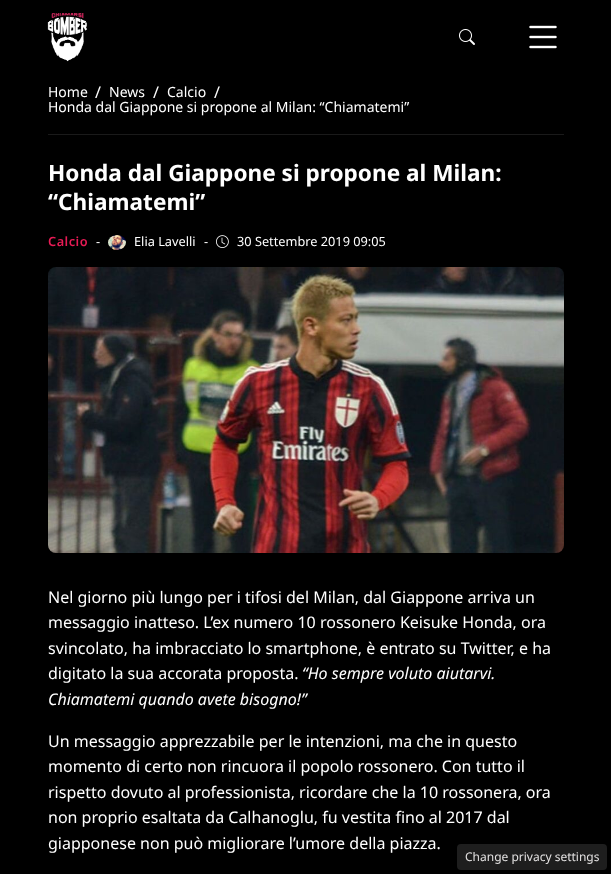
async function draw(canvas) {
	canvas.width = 611;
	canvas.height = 874;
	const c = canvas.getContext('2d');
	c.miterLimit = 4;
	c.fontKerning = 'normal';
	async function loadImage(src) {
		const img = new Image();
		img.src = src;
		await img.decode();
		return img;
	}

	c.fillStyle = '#000';
	c.fillRect(0, 0, 611, 874);
	c.drawImage(await loadImage('img1.png'), 47, 13, 41, 49);
	c.drawImage(await loadImage('img2.png'), 459, 29, 16, 16);
	c.drawImage(await loadImage('img3.png'), 529, 25, 28, 24);
	c.fillStyle = '#1a1a1a';
	c.fillRect(48, 134, 516, 1);
	c.font = '14px Noto Sans';
	c.fillStyle = '#fff';
	c.fillText('Home', 48, 97);
	c.font = '16px Noto Sans';
	c.fillText('/', 95, 98);
	c.font = '14px Noto Sans';
	c.fillText('News', 109, 97);
	c.font = '16px Noto Sans';
	c.fillText('/', 153, 98);
	c.font = '14px Noto Sans';
	c.fillText('Calcio', 167, 97);
	c.font = '16px Noto Sans';
	c.fillText('/', 214, 98);
	c.font = '14px Noto Sans';
	c.fillText('Honda dal Giappone si propone al Milan: “Chiamatemi”', 48, 112);
	c.font = 'bold 22.6px Noto Sans';
	c.fillText('Honda dal Giappone si propone al Milan:', 48, 181);
	c.fillText('“Chiamatemi”', 48, 210);
	c.letterSpacing = '0.5px';
	c.font = '600 12.75px Noto Sans';
	c.fillStyle = '#e81b55';
	c.fillText('Calcio', 48, 246);
	c.letterSpacing = '0px';
	c.font = '12.75px Noto Sans';
	c.fillStyle = '#fff';
	c.fillText('-', 96, 246);
	c.drawImage(await loadImage('img4.png'), 108, 235, 18, 15);
	c.fillText('Elia Lavelli', 134, 246);
	c.fillText('-', 204, 246);
	c.drawImage(await loadImage('img5.png'), 216, 235, 13, 13);
	c.fillText('30 Settembre 2019 09:05', 237, 246);
	c.drawImage(await loadImage('img6.png'), 48, 267, 516, 286);
	c.font = '16px Noto Sans';
	for (const [text, x, y] of [
		['Nel giorno più lungo per i tifosi del Milan, dal Giappone arriva un', 48, 603],
		['messaggio inatteso. L’ex numero 10 rossonero Keisuke Honda, ora', 48, 628],
		['svincolato, ha imbracciato lo smartphone, è entrato su Twitter, e ha', 48, 654],
		['digitato la sua accorata proposta.', 48, 679],
	]) {
		c.fillText(text, x, y);
	}
	c.font = 'italic 16px Noto Sans';
	c.fillText('“Ho sempre voluto aiutarvi.', 302, 679);
	c.fillText('Chiamatemi quando avete bisogno!”', 48, 705);
	c.font = '16px Noto Sans';
	for (const [text, x, y] of [
		['Un messaggio apprezzabile per le intenzioni, ma che in questo', 48, 747],
		['momento di certo non rincuora il popolo rossonero. Con tutto il', 48, 772],
		['rispetto dovuto al professionista, ricordare che la 10 rossonera, ora', 48, 798],
		['non proprio esaltata da Calhanoglu, fu vestita fino al 2017 dal', 48, 823],
		['giapponese non può migliorare l’umore della piazza.', 48, 849],
	]) {
		c.fillText(text, x, y);
	}
	c.fillStyle = '#1e1e1e';
	c.beginPath();
	c.roundRect(457, 844, 150, 26, 4);
	c.fill();
	c.font = '12px Noto Sans';
	c.fillStyle = '#e3e1e1';
	c.fillText('Change privacy settings', 465, 861);
}

draw(document.querySelector('canvas'));
